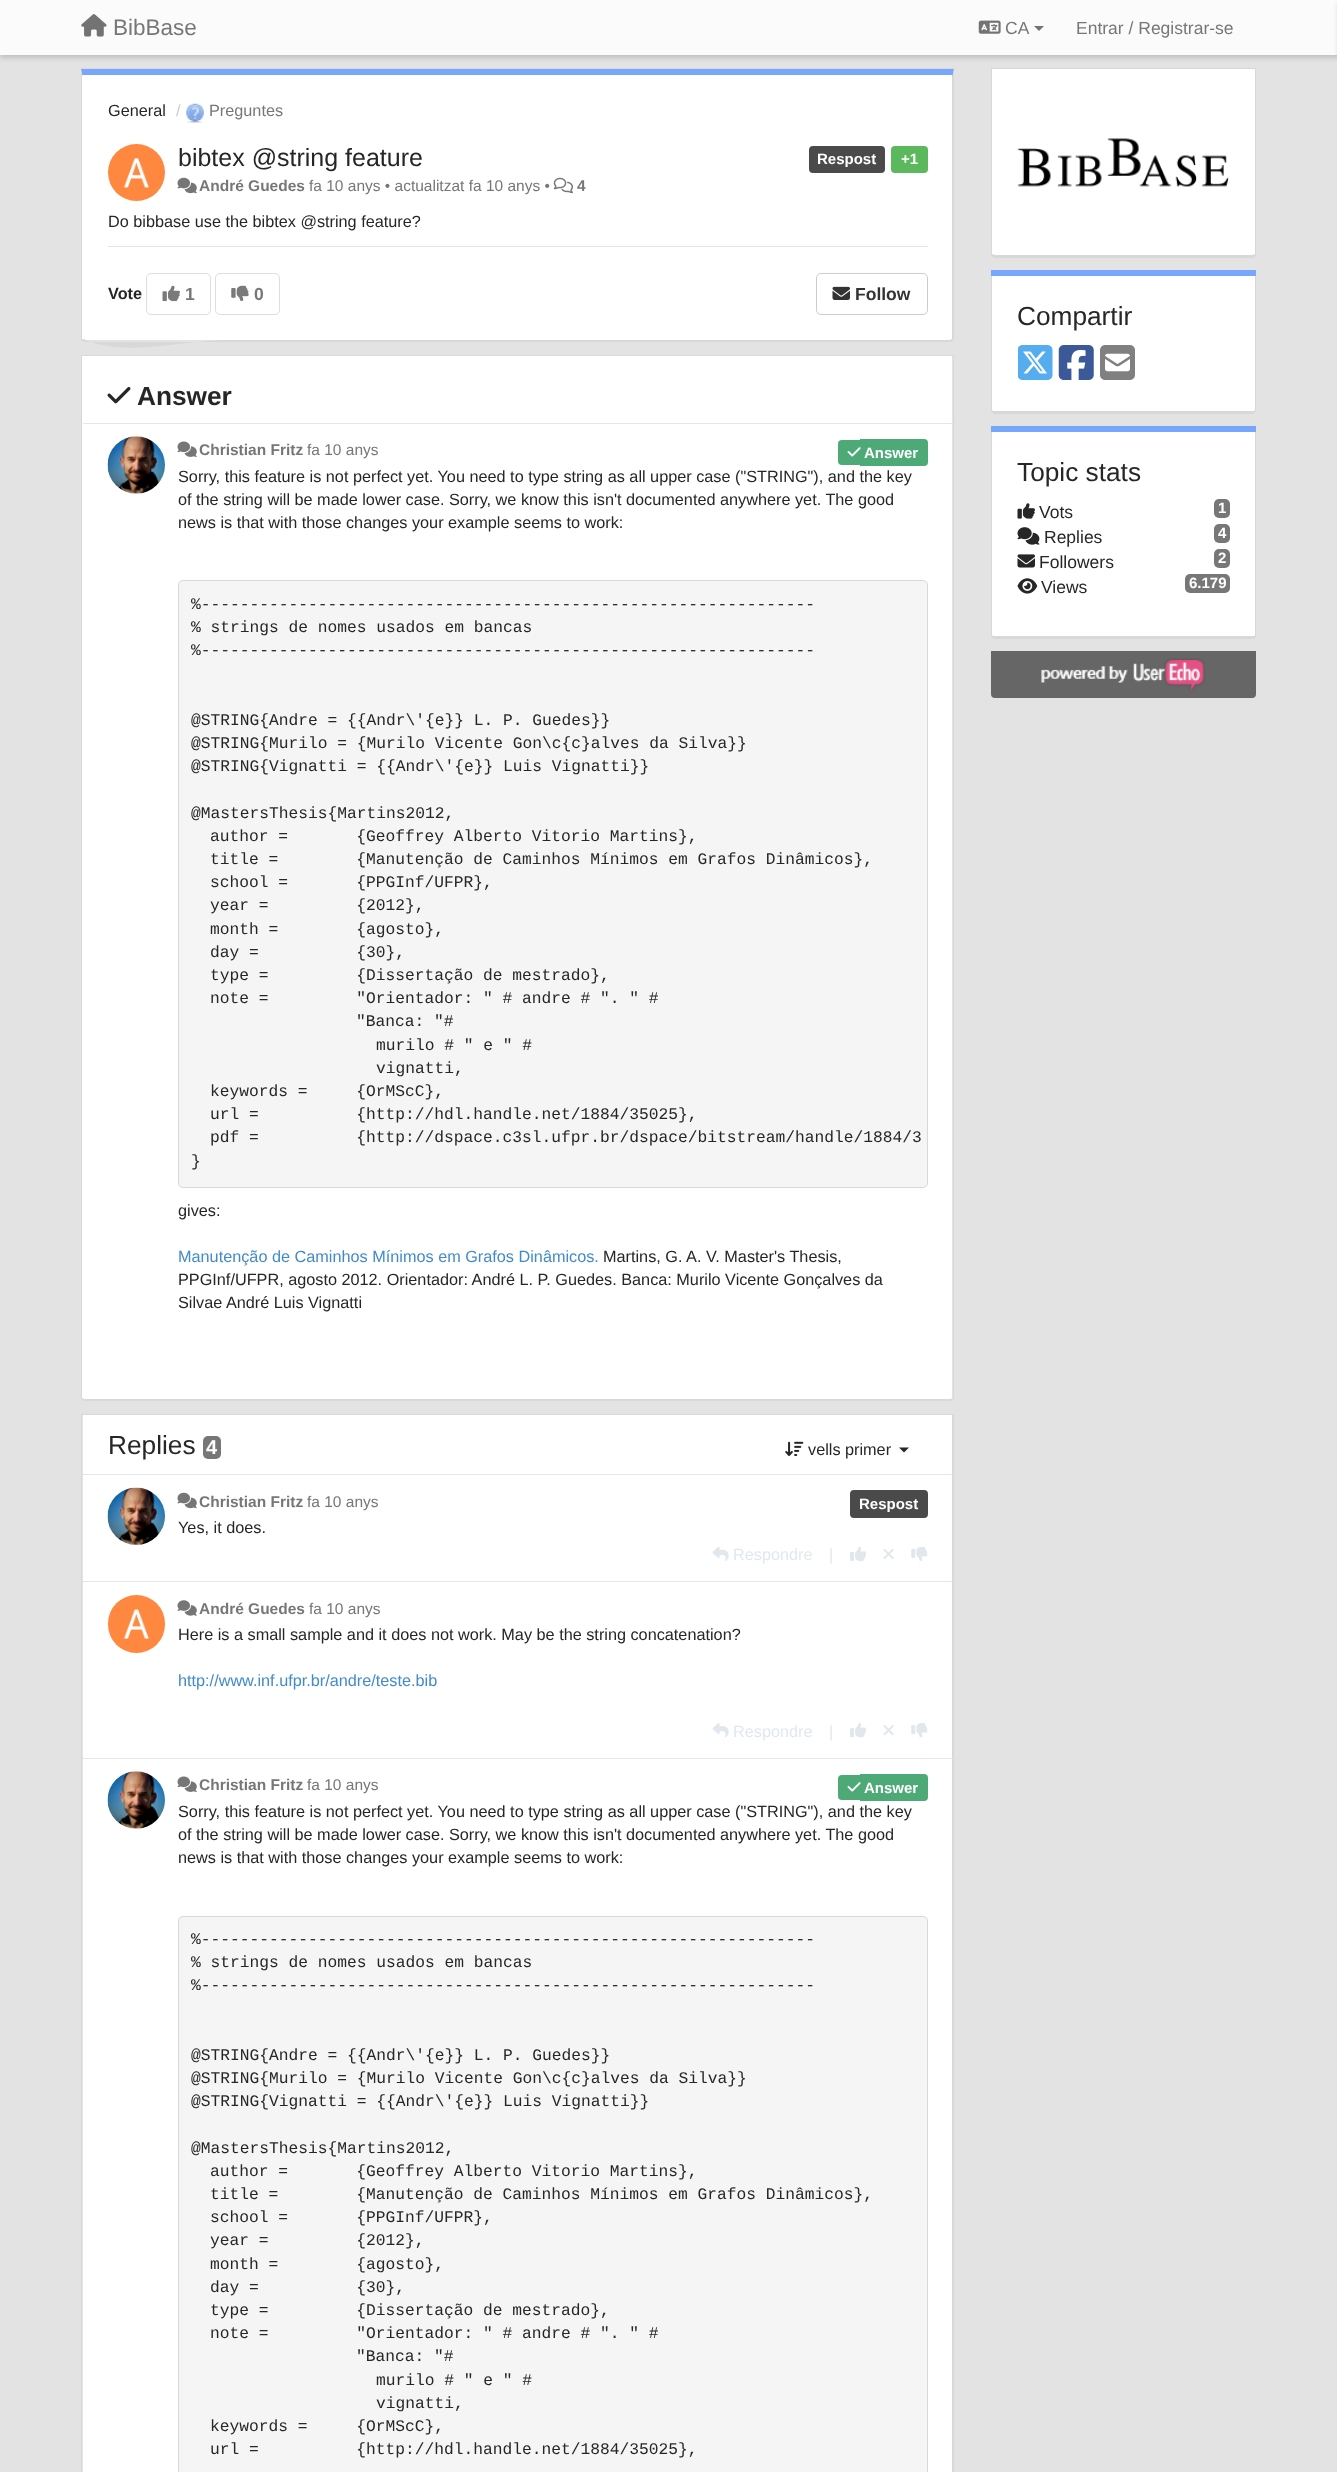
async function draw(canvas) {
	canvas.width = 1337;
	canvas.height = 2472;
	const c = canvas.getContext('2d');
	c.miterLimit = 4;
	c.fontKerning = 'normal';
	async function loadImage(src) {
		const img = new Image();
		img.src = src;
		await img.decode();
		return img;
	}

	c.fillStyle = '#e3e3e3';
	c.fillRect(0, 0, 1337, 2472);
	c.fillStyle = '#00000026';
	c.filter = 'blur(2.5px)';
	c.beginPath();
	c.rect(0, 3, 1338, 55);
	c.fill();
	c.filter = 'none';
	c.fillStyle = '#fbfbfb';
	c.fillRect(0, 0, 1337, 55);
	c.drawImage(await loadImage('img1.png'), 81, 14, 26, 23);
	c.font = '22.5px Liberation Sans';
	c.fillStyle = '#777';
	c.fillText('BibBase', 113, 35);
	c.drawImage(await loadImage('img2.png'), 978, 20, 23, 14);
	c.font = '17.5px Liberation Sans';
	c.fillText('CA', 1005, 34);
	c.fillStyle = '#737373';
	c.beginPath();
	c.moveTo(1034, 26);
	c.lineTo(1044, 26);
	c.lineTo(1039, 31);
	c.closePath();
	c.fill();
	c.fillStyle = '#777';
	c.fillText('Entrar / Registrar-se', 1076, 34);
	c.fillStyle = '#00000026';
	c.filter = 'blur(2.5px)';
	c.beginPath();
	c.rect(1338, 3, 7, 55);
	c.fill();
	c.filter = 'none';
	c.fillStyle = '#d8d8d8';
	c.fillRect(81, 68, 873, 1);
	c.fillStyle = '#fff';
	c.beginPath();
	c.moveTo(82, 75);
	c.lineTo(952, 75);
	c.lineTo(952, 339);
	c.bezierCurveTo(952, 339, 951, 340, 950, 340);
	c.lineTo(85, 340);
	c.bezierCurveTo(84, 340, 82, 339, 82, 339);
	c.closePath();
	c.fill();
	c.fillStyle = '#76a7fa';
	c.beginPath();
	c.moveTo(954, 69);
	c.lineTo(81, 69);
	c.lineTo(82, 75);
	c.lineTo(952, 75);
	c.lineTo(952, 78);
	c.closePath();
	c.fill();
	c.fillStyle = '#d8d8d8';
	c.beginPath();
	c.moveTo(954, 340);
	c.lineTo(953, 341);
	c.lineTo(952, 339);
	c.lineTo(952, 78);
	c.lineTo(954, 69);
	c.closePath();
	c.fill();
	c.beginPath();
	c.moveTo(953, 341);
	c.lineTo(950, 342);
	c.lineTo(85, 342);
	c.lineTo(82, 341);
	c.lineTo(83, 339);
	c.bezierCurveTo(128, 358, 180, 340, 229, 340);
	c.lineTo(950, 340);
	c.lineTo(952, 339);
	c.closePath();
	c.fill();
	c.beginPath();
	c.moveTo(82, 75);
	c.lineTo(82, 339);
	c.lineTo(83, 339);
	c.lineTo(82, 341);
	c.lineTo(81, 340);
	c.lineTo(81, 69);
	c.closePath();
	c.fill();
	c.font = '16.25px Liberation Sans';
	c.fillStyle = '#262626';
	c.fillText('General', 108, 116);
	c.fillStyle = '#ccc';
	c.fillText('/', 176, 116);
	c.drawImage(await loadImage('img3.png'), 186, 103, 18, 20);
	c.fillStyle = '#777';
	c.fillText('Preguntes', 209, 116);
	c.fillStyle = '#ff8841';
	c.beginPath();
	c.arc(136.5, 172.5, 28.5, 0, 2 * Math.PI);
	c.fill();
	c.drawImage(await loadImage('img4.png'), 123, 158, 26, 30);
	c.font = '25px Liberation Sans';
	c.fillStyle = '#262626';
	c.fillText('bibtex @string feature', 178, 166);
	c.fillStyle = '#4a4a4a';
	c.beginPath();
	c.roundRect(809, 146, 76, 27, 4);
	c.fill();
	c.font = 'bold 15px Liberation Sans';
	c.fillStyle = '#fff';
	c.fillText('Respost', 817, 164);
	c.fillStyle = '#5cb85c';
	c.beginPath();
	c.roundRect(891, 146, 37, 27, 4);
	c.fill();
	c.fillStyle = '#fff';
	c.fillText('+1', 901, 164);
	c.drawImage(await loadImage('img5.png'), 177, 177, 20, 17);
	c.font = 'bold 15.5px Liberation Sans';
	c.fillStyle = '#777';
	c.fillText('André Guedes', 199, 191);
	c.font = '15.5px Liberation Sans';
	c.fillText('fa 10 anys • actualitzat fa 10 anys •', 309, 191);
	c.drawImage(await loadImage('img6.png'), 553, 177, 20, 17);
	c.font = 'bold 15.5px Liberation Sans';
	c.fillText('4', 577, 191);
	c.font = '16.25px Liberation Sans';
	c.fillStyle = '#262626';
	c.fillText('Do bibbase use the bibtex @string feature?', 108, 227);
	c.fillStyle = '#e5e5e5';
	c.fillRect(108, 246, 820, 1);
	c.font = 'bold 16.25px Liberation Sans';
	c.fillStyle = '#262626';
	c.fillText('Vote', 108, 299);
	c.beginPath();
	c.roundRect(146.5, 273.5, 64, 41, 4.5);
	c.strokeStyle = '#dedede';
	c.stroke();
	c.drawImage(await loadImage('img7.png'), 162, 285, 18, 17);
	c.font = 'bold 17.5px Liberation Sans';
	c.fillStyle = '#777';
	c.fillText('1', 185, 300);
	c.beginPath();
	c.roundRect(215.5, 273.5, 64, 41, 4.5);
	c.stroke();
	c.drawImage(await loadImage('img8.png'), 231, 285, 18, 17);
	c.fillText('0', 254, 300);
	c.beginPath();
	c.roundRect(816.5, 273.5, 111, 41, 4.5);
	c.strokeStyle = '#ccc';
	c.stroke();
	c.drawImage(await loadImage('img9.png'), 832, 286, 18, 14);
	c.fillStyle = '#333';
	c.fillText('Follow', 855, 300);
	c.fillStyle = '#fff';
	c.beginPath();
	c.moveTo(82, 356);
	c.lineTo(952, 356);
	c.lineTo(952, 1398);
	c.bezierCurveTo(952, 1398, 951, 1399, 950, 1399);
	c.lineTo(85, 1399);
	c.bezierCurveTo(84, 1399, 82, 1398, 82, 1398);
	c.closePath();
	c.fill();
	c.beginPath();
	c.roundRect(81.5, 355.5, 872, 1045, [0, 0, 3.5, 3.5]);
	c.strokeStyle = '#d8d8d8';
	c.stroke();
	c.fillStyle = '#d8d8d8';
	c.fillRect(84, 1399, 869, 1);
	c.drawImage(await loadImage('img10.png'), 107, 387, 24, 17);
	c.font = 'bold 26.25px Liberation Sans';
	c.fillStyle = '#262626';
	c.fillText('Answer', 137, 405);
	c.fillStyle = '#e1e8ed';
	c.fillRect(83, 423, 870, 1);
	c.drawImage(await loadImage('img11.png'), 107, 436, 58, 58);
	c.drawImage(await loadImage('img12.png'), 177, 441, 20, 16);
	c.font = 'bold 15.5px Liberation Sans';
	c.fillStyle = '#777';
	c.fillText('Christian Fritz', 199, 455);
	c.font = '15.5px Liberation Sans';
	c.fillText('fa 10 anys', 307, 455);
	c.fillStyle = '#4daa77';
	c.beginPath();
	c.roundRect(838, 440, 22, 25, [4, 0, 0, 4]);
	c.fill();
	c.beginPath();
	c.roundRect(860, 439, 68, 27, [0, 4, 4, 0]);
	c.fill();
	c.drawImage(await loadImage('img13.png'), 847, 447, 14, 10);
	c.font = 'bold 15px Liberation Sans';
	c.fillStyle = '#fff';
	c.fillText('Answer', 864, 458);
	c.font = '16.25px Liberation Sans';
	c.fillStyle = '#262626';
	for (const [text, x, y] of [
		['Sorry, this feature is not perfect yet. You need to type string as all upper case ("STRING"), and the key', 178, 482],
		['of the string will be made lower case. Sorry, we know this isn\'t documented anywhere yet. The good', 178, 505],
		['news is that with those changes your example seems to work:', 178, 528],
	]) {
		c.fillText(text, x, y);
	}
	c.fillStyle = '#f5f5f5';
	c.beginPath();
	c.roundRect(178.5, 580.5, 749, 607, 4.5);
	c.fill();
	c.stroke();
	c.font = '16.25px Liberation Mono';
	c.fillStyle = '#262626';
	for (const [text, x, y] of [
		['%---------------------------------------------------------------', 191, 609],
		['% strings de nomes usados em bancas', 191, 632],
		['%---------------------------------------------------------------', 191, 655],
		['@STRING{Andre = {{Andr\\\'{e}} L. P. Guedes}}', 191, 725],
		['@STRING{Murilo = {Murilo Vicente Gon\\c{c}alves da Silva}}', 191, 748],
		['@STRING{Vignatti = {{Andr\\\'{e}} Luis Vignatti}}', 191, 771],
		['@MastersThesis{Martins2012,', 191, 818],
		['author =       {Geoffrey Alberto Vitorio Martins},', 210, 841],
		['title =        {Manutenção de Caminhos Mínimos em Grafos Dinâmicos},', 210, 864],
		['school =       {PPGInf/UFPR},', 210, 887],
		['year =         {2012},', 210, 910],
		['month =        {agosto},', 210, 934],
		['day =          {30},', 210, 957],
		['type =         {Dissertação de mestrado},', 210, 980],
		['note =         "Orientador: " # andre # ". " #', 210, 1003],
		['"Banca: "#', 356, 1026],
		['murilo # " e " #', 376, 1050],
		['vignatti,', 376, 1073],
		['keywords =     {OrMScC},', 210, 1096],
		['url =          {http://hdl.handle.net/1884/35025},', 210, 1119],
		['pdf =          {http://dspace.c3sl.ufpr.br/dspace/bitstream/handle/1884/3', 210, 1142],
		['}', 191, 1166],
	]) {
		c.fillText(text, x, y);
	}
	c.font = '16.25px Liberation Sans';
	c.fillText('gives:', 178, 1216);
	c.fillStyle = '#428bca';
	c.fillText('Manutenção de Caminhos Mínimos em Grafos Dinâmicos.', 178, 1262);
	c.fillStyle = '#262626';
	for (const [text, x, y] of [
		['Martins, G. A. V. Master\'s Thesis,', 603, 1262],
		['PPGInf/UFPR, agosto 2012. Orientador: André L. P. Guedes. Banca: Murilo Vicente Gonçalves da', 178, 1285],
		['Silvae André Luis Vignatti', 178, 1308],
	]) {
		c.fillText(text, x, y);
	}
	c.fillStyle = '#d8d8d8';
	c.fillRect(81, 1414, 873, 1);
	c.fillStyle = '#fff';
	c.fillRect(83, 1415, 869, 1057);
	c.fillStyle = '#d8d8d8';
	c.beginPath();
	c.moveTo(81, 1415);
	c.lineTo(954, 1415);
	c.lineTo(954, 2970);
	c.bezierCurveTo(954, 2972, 952, 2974, 950, 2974);
	c.lineTo(85, 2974);
	c.bezierCurveTo(83, 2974, 81, 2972, 81, 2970);
	c.closePath();
	c.moveTo(82, 1415);
	c.lineTo(952, 1415);
	c.lineTo(952, 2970);
	c.bezierCurveTo(952, 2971, 951, 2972, 950, 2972);
	c.lineTo(85, 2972);
	c.bezierCurveTo(84, 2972, 82, 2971, 82, 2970);
	c.closePath();
	c.fill('evenodd');
	c.font = '26.25px Liberation Sans';
	c.fillStyle = '#262626';
	c.fillText('Replies', 108, 1454);
	c.fillStyle = '#777';
	c.beginPath();
	c.roundRect(203, 1436, 18, 23, 5);
	c.fill();
	c.font = 'bold 20px Liberation Sans';
	c.fillStyle = '#fff';
	c.fillText('4', 206, 1454);
	c.drawImage(await loadImage('img14.png'), 785, 1441, 19, 15);
	c.font = '16.25px Liberation Sans';
	c.fillStyle = '#262626';
	c.fillText('vells primer', 808, 1455);
	c.beginPath();
	c.moveTo(899, 1447.5);
	c.lineTo(909, 1447.5);
	c.lineTo(904, 1452.5);
	c.closePath();
	c.fill();
	c.fillStyle = '#e1e8ed';
	c.fillRect(83, 1474, 870, 1);
	c.fillRect(83, 1581, 870, 1);
	c.drawImage(await loadImage('img15.png'), 107, 1487, 58, 58);
	c.drawImage(await loadImage('img5.png'), 177, 1492, 20, 17);
	c.font = 'bold 15.5px Liberation Sans';
	c.fillStyle = '#777';
	c.fillText('Christian Fritz', 199, 1507);
	c.font = '15.5px Liberation Sans';
	c.fillText('fa 10 anys', 307, 1507);
	c.fillStyle = '#4a4a4a';
	c.beginPath();
	c.roundRect(850, 1490, 78, 28, 4);
	c.fill();
	c.font = 'bold 15px Liberation Sans';
	c.fillStyle = '#fff';
	c.fillText('Respost', 859, 1509);
	c.font = '16.25px Liberation Sans';
	c.fillStyle = '#262626';
	c.fillText('Yes, it does.', 178, 1533);
	c.drawImage(await loadImage('img16.png'), 712, 1547, 17, 14);
	c.fillStyle = '#e1e8ed';
	c.fillText('Respondre', 733, 1560);
	c.fillText('|', 829, 1560);
	c.drawImage(await loadImage('img17.png'), 850, 1546, 17, 15);
	c.drawImage(await loadImage('img18.png'), 883, 1549, 11, 10);
	c.drawImage(await loadImage('img19.png'), 911, 1546, 17, 15);
	c.fillRect(83, 1758, 870, 1);
	c.fillStyle = '#ff8841';
	c.beginPath();
	c.roundRect(108, 1595, 57, 58, 28.5);
	c.fill();
	c.drawImage(await loadImage('img20.png'), 123, 1609, 26, 30);
	c.drawImage(await loadImage('img21.png'), 177, 1600, 20, 16);
	c.font = 'bold 15.5px Liberation Sans';
	c.fillStyle = '#777';
	c.fillText('André Guedes', 199, 1614);
	c.font = '15.5px Liberation Sans';
	c.fillText('fa 10 anys', 309, 1614);
	c.font = '16.25px Liberation Sans';
	c.fillStyle = '#262626';
	c.fillText('Here is a small sample and it does not work. May be the string concatenation?', 178, 1640);
	c.fillStyle = '#428bca';
	c.fillText('http://www.inf.ufpr.br/andre/teste.bib', 178, 1686);
	c.drawImage(await loadImage('img22.png'), 712, 1723, 17, 15);
	c.fillStyle = '#e1e8ed';
	c.fillText('Respondre', 733, 1737);
	c.fillText('|', 829, 1737);
	c.drawImage(await loadImage('img23.png'), 850, 1723, 17, 15);
	c.drawImage(await loadImage('img24.png'), 883, 1725, 11, 11);
	c.drawImage(await loadImage('img25.png'), 911, 1723, 17, 15);
	c.drawImage(await loadImage('img26.png'), 107, 1771, 58, 58);
	c.drawImage(await loadImage('img12.png'), 177, 1776, 20, 16);
	c.font = 'bold 15.5px Liberation Sans';
	c.fillStyle = '#777';
	c.fillText('Christian Fritz', 199, 1790);
	c.font = '15.5px Liberation Sans';
	c.fillText('fa 10 anys', 307, 1790);
	c.fillStyle = '#4daa77';
	c.beginPath();
	c.roundRect(838, 1775, 22, 25, [4, 0, 0, 4]);
	c.fill();
	c.beginPath();
	c.roundRect(860, 1774, 68, 27, [0, 4, 4, 0]);
	c.fill();
	c.drawImage(await loadImage('img13.png'), 847, 1782, 14, 10);
	c.font = 'bold 15px Liberation Sans';
	c.fillStyle = '#fff';
	c.fillText('Answer', 864, 1793);
	c.font = '16.25px Liberation Sans';
	c.fillStyle = '#262626';
	for (const [text, x, y] of [
		['Sorry, this feature is not perfect yet. You need to type string as all upper case ("STRING"), and the key', 178, 1817],
		['of the string will be made lower case. Sorry, we know this isn\'t documented anywhere yet. The good', 178, 1840],
		['news is that with those changes your example seems to work:', 178, 1863],
	]) {
		c.fillText(text, x, y);
	}
	c.fillStyle = '#f5f5f5';
	c.beginPath();
	c.moveTo(183, 1916);
	c.lineTo(923, 1916);
	c.bezierCurveTo(926, 1916, 928, 1918, 928, 1921);
	c.lineTo(928, 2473);
	c.lineTo(178, 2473);
	c.lineTo(178, 1921);
	c.bezierCurveTo(178, 1918, 180, 1916, 183, 1916);
	c.closePath();
	c.fill();
	c.beginPath();
	c.roundRect(178.5, 1916.5, 749, 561, 4.5);
	c.stroke();
	c.font = '16.25px Liberation Mono';
	c.fillStyle = '#262626';
	for (const [text, x, y] of [
		['%---------------------------------------------------------------', 191, 1944],
		['% strings de nomes usados em bancas', 191, 1967],
		['%---------------------------------------------------------------', 191, 1990],
		['@STRING{Andre = {{Andr\\\'{e}} L. P. Guedes}}', 191, 2060],
		['@STRING{Murilo = {Murilo Vicente Gon\\c{c}alves da Silva}}', 191, 2083],
		['@STRING{Vignatti = {{Andr\\\'{e}} Luis Vignatti}}', 191, 2106],
		['@MastersThesis{Martins2012,', 191, 2153],
		['author =       {Geoffrey Alberto Vitorio Martins},', 210, 2176],
		['title =        {Manutenção de Caminhos Mínimos em Grafos Dinâmicos},', 210, 2199],
		['school =       {PPGInf/UFPR},', 210, 2222],
		['year =         {2012},', 210, 2245],
		['month =        {agosto},', 210, 2269],
		['day =          {30},', 210, 2292],
		['type =         {Dissertação de mestrado},', 210, 2315],
		['note =         "Orientador: " # andre # ". " #', 210, 2338],
		['"Banca: "#', 356, 2361],
		['murilo # " e " #', 376, 2385],
		['vignatti,', 376, 2408],
		['keywords =     {OrMScC},', 210, 2431],
		['url =          {http://hdl.handle.net/1884/35025},', 210, 2454],
	]) {
		c.fillText(text, x, y);
	}
	c.fillStyle = '#d8d8d8';
	c.fillRect(991, 68, 265, 1);
	c.fillStyle = '#fff';
	c.beginPath();
	c.moveTo(992, 69);
	c.lineTo(1255, 69);
	c.lineTo(1255, 254);
	c.bezierCurveTo(1255, 254, 1254, 255, 1252, 255);
	c.lineTo(995, 255);
	c.bezierCurveTo(994, 255, 992, 254, 992, 254);
	c.closePath();
	c.fill();
	c.fillStyle = '#d8d8d8';
	c.beginPath();
	c.moveTo(991, 69);
	c.lineTo(1256, 69);
	c.lineTo(1256, 254);
	c.bezierCurveTo(1256, 256, 1255, 258, 1252, 258);
	c.lineTo(995, 258);
	c.bezierCurveTo(993, 258, 991, 256, 991, 254);
	c.closePath();
	c.moveTo(992, 69);
	c.lineTo(1255, 69);
	c.lineTo(1255, 254);
	c.bezierCurveTo(1255, 254, 1254, 255, 1252, 255);
	c.lineTo(995, 255);
	c.bezierCurveTo(994, 255, 992, 254, 992, 254);
	c.closePath();
	c.fill('evenodd');
	c.drawImage(await loadImage('img27.png'), 1017, 138, 212, 49);
	c.fillStyle = '#76a7fa';
	c.fillRect(991, 270, 265, 6);
	c.fillStyle = '#fff';
	c.beginPath();
	c.moveTo(992, 276);
	c.lineTo(1255, 276);
	c.lineTo(1255, 410);
	c.bezierCurveTo(1255, 411, 1254, 411, 1252, 411);
	c.lineTo(995, 411);
	c.bezierCurveTo(994, 411, 992, 411, 992, 410);
	c.closePath();
	c.fill();
	c.fillStyle = '#d8d8d8';
	c.beginPath();
	c.moveTo(991, 276);
	c.lineTo(1256, 276);
	c.lineTo(1256, 410);
	c.bezierCurveTo(1256, 412, 1255, 414, 1252, 414);
	c.lineTo(995, 414);
	c.bezierCurveTo(993, 414, 991, 412, 991, 410);
	c.closePath();
	c.moveTo(992, 276);
	c.lineTo(1255, 276);
	c.lineTo(1255, 410);
	c.bezierCurveTo(1255, 411, 1254, 411, 1252, 411);
	c.lineTo(995, 411);
	c.bezierCurveTo(994, 411, 992, 411, 992, 410);
	c.closePath();
	c.fill('evenodd');
	c.font = '26.25px Liberation Sans';
	c.fillStyle = '#262626';
	c.fillText('Compartir', 1017, 325);
	c.drawImage(await loadImage('img28.png'), 1018, 345, 35, 35);
	c.drawImage(await loadImage('img29.png'), 1058, 345, 36, 35);
	c.drawImage(await loadImage('img30.png'), 1100, 345, 35, 35);
	c.fillStyle = '#76a7fa';
	c.fillRect(991, 426, 265, 6);
	c.fillStyle = '#fff';
	c.beginPath();
	c.moveTo(992, 432);
	c.lineTo(1255, 432);
	c.lineTo(1255, 635);
	c.bezierCurveTo(1255, 636, 1254, 636, 1252, 636);
	c.lineTo(995, 636);
	c.bezierCurveTo(994, 636, 992, 636, 992, 635);
	c.closePath();
	c.fill();
	c.fillStyle = '#d8d8d8';
	c.beginPath();
	c.moveTo(991, 432);
	c.lineTo(1256, 432);
	c.lineTo(1256, 635);
	c.bezierCurveTo(1256, 637, 1255, 639, 1252, 639);
	c.lineTo(995, 639);
	c.bezierCurveTo(993, 639, 991, 637, 991, 635);
	c.closePath();
	c.moveTo(992, 432);
	c.lineTo(1255, 432);
	c.lineTo(1255, 635);
	c.bezierCurveTo(1255, 636, 1254, 636, 1252, 636);
	c.lineTo(995, 636);
	c.bezierCurveTo(994, 636, 992, 636, 992, 635);
	c.closePath();
	c.fill('evenodd');
	c.fillStyle = '#262626';
	c.fillText('Topic stats', 1017, 481);
	c.drawImage(await loadImage('img31.png'), 1017, 503, 18, 16);
	c.font = '17.5px Liberation Sans';
	c.fillText('Vots', 1039, 518);
	c.fillStyle = '#777';
	c.beginPath();
	c.roundRect(1214, 499, 16, 19, 5);
	c.fill();
	c.font = 'bold 15px Liberation Sans';
	c.fillStyle = '#fff';
	c.fillText('1', 1218, 513);
	c.drawImage(await loadImage('img32.png'), 1017, 527, 23, 18);
	c.font = '17.5px Liberation Sans';
	c.fillStyle = '#262626';
	c.fillText('Replies', 1044, 543);
	c.fillStyle = '#777';
	c.beginPath();
	c.roundRect(1214, 524, 16, 19, 5);
	c.fill();
	c.font = 'bold 15px Liberation Sans';
	c.fillStyle = '#fff';
	c.fillText('4', 1218, 538);
	c.drawImage(await loadImage('img33.png'), 1017, 554, 18, 14);
	c.font = '17.5px Liberation Sans';
	c.fillStyle = '#262626';
	c.fillText('Followers', 1039, 568);
	c.fillStyle = '#777';
	c.beginPath();
	c.roundRect(1214, 549, 16, 19, 5);
	c.fill();
	c.font = 'bold 15px Liberation Sans';
	c.fillStyle = '#fff';
	c.fillText('2', 1218, 563);
	c.drawImage(await loadImage('img34.png'), 1017, 578, 21, 16);
	c.font = '17.5px Liberation Sans';
	c.fillStyle = '#262626';
	c.fillText('Views', 1041, 593);
	c.fillStyle = '#777';
	c.beginPath();
	c.roundRect(1185, 574, 45, 19, 5);
	c.fill();
	c.font = 'bold 15px Liberation Sans';
	c.fillStyle = '#fff';
	c.fillText('6.179', 1189, 588);
	c.fillStyle = '#666';
	c.beginPath();
	c.roundRect(991, 651, 265, 47, [0, 0, 4, 4]);
	c.fill();
	c.drawImage(await loadImage('img35.png'), 1041, 658, 164, 33);
}

draw(document.querySelector('canvas'));
